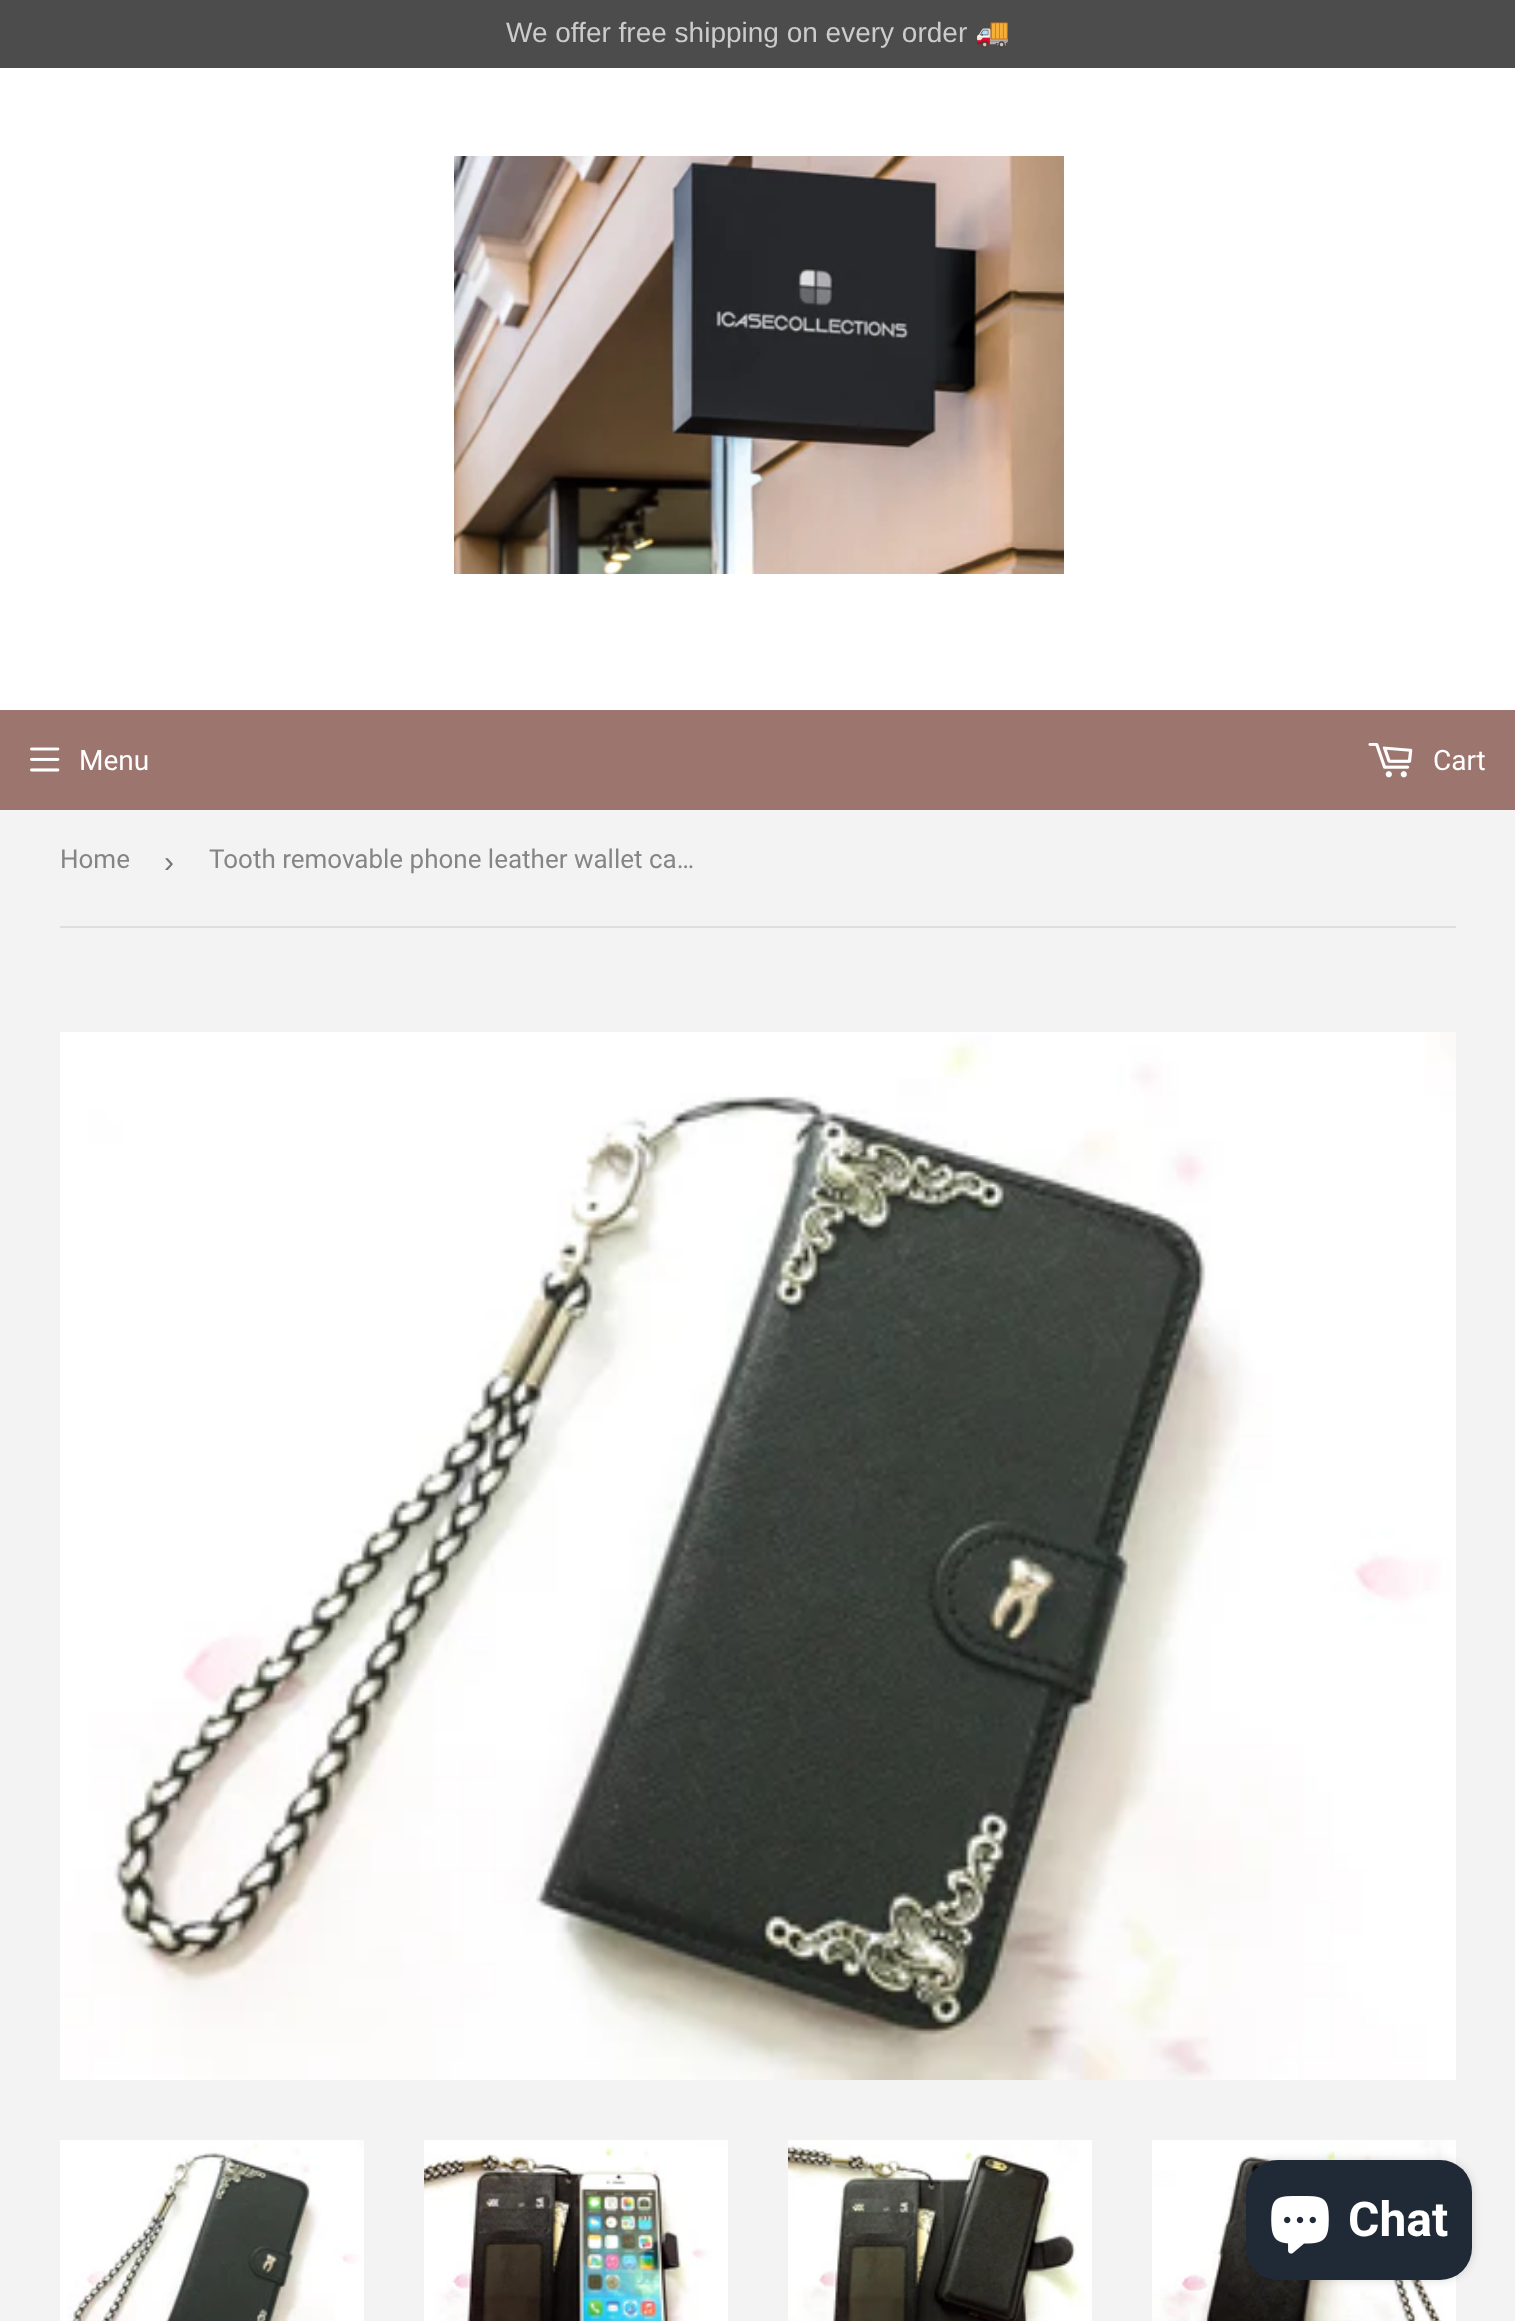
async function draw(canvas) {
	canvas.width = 1515;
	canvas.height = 2321;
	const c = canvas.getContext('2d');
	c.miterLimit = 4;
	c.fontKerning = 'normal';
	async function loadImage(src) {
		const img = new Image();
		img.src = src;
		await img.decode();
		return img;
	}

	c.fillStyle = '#f3f3f3';
	c.fillRect(0, 0, 1515, 2321);
	c.fillStyle = '#4c4c4c';
	c.fillRect(0, 0, 1515, 68);
	c.font = '28px Liberation Sans';
	c.fillStyle = '#ccc';
	c.fillText('We offer free shipping on every order', 506, 42);
	c.font = '28px Noto Color Emoji';
	c.fillText('🚚', 975, 42);
	c.fillStyle = '#fff';
	c.fillRect(0, 68, 1515, 642);
	c.drawImage(await loadImage('img1.png'), 454, 156, 610, 418);
	c.fillStyle = '#9c756f';
	c.fillRect(0, 710, 1515, 100);
	c.drawImage(await loadImage('img2.png'), 30, 747, 30, 25);
	c.font = '28px Roboto';
	c.fillStyle = '#fff';
	c.fillText('Menu', 79, 770);
	c.drawImage(await loadImage('img3.png'), 1368, 743, 45, 35);
	c.fillText('Cart', 1433, 770);
	c.fillStyle = '#dedede';
	c.fillRect(60, 926, 1396, 2);
	c.font = '26px Roboto';
	c.fillStyle = '#858585';
	c.fillText('Home', 60, 868);
	c.font = '30px Liberation Sans';
	c.fillStyle = '#767676';
	c.fillText('›', 164, 872);
	c.font = '26px Roboto';
	c.fillStyle = '#858585';
	c.fillText('Tooth removable phone leather wallet ca…', 209, 868);
	c.drawImage(await loadImage('img4.png'), 60, 1032, 1396, 1048);
	c.drawImage(await loadImage('img5.png'), 60, 2140, 304, 181);
	c.drawImage(await loadImage('img6.png'), 424, 2140, 304, 181);
	c.drawImage(await loadImage('img7.png'), 788, 2140, 304, 181);
	c.drawImage(await loadImage('img8.png'), 1152, 2140, 304, 181);
	c.fillStyle = '#00000026';
	c.filter = 'blur(5px)';
	c.beginPath();
	c.roundRect(1246, 2160, 226, 120, 32);
	c.fill();
	c.filter = 'none';
	c.fillStyle = '#202a36';
	c.beginPath();
	c.roundRect(1246, 2160, 226, 120, 32);
	c.fill();
	c.drawImage(await loadImage('img9.png'), 1271, 2196, 58, 58);
	c.font = 'bold 48px Roboto';
	c.fillStyle = '#fff';
	c.fillText('Chat', 1348, 2236);
}

draw(document.querySelector('canvas'));
